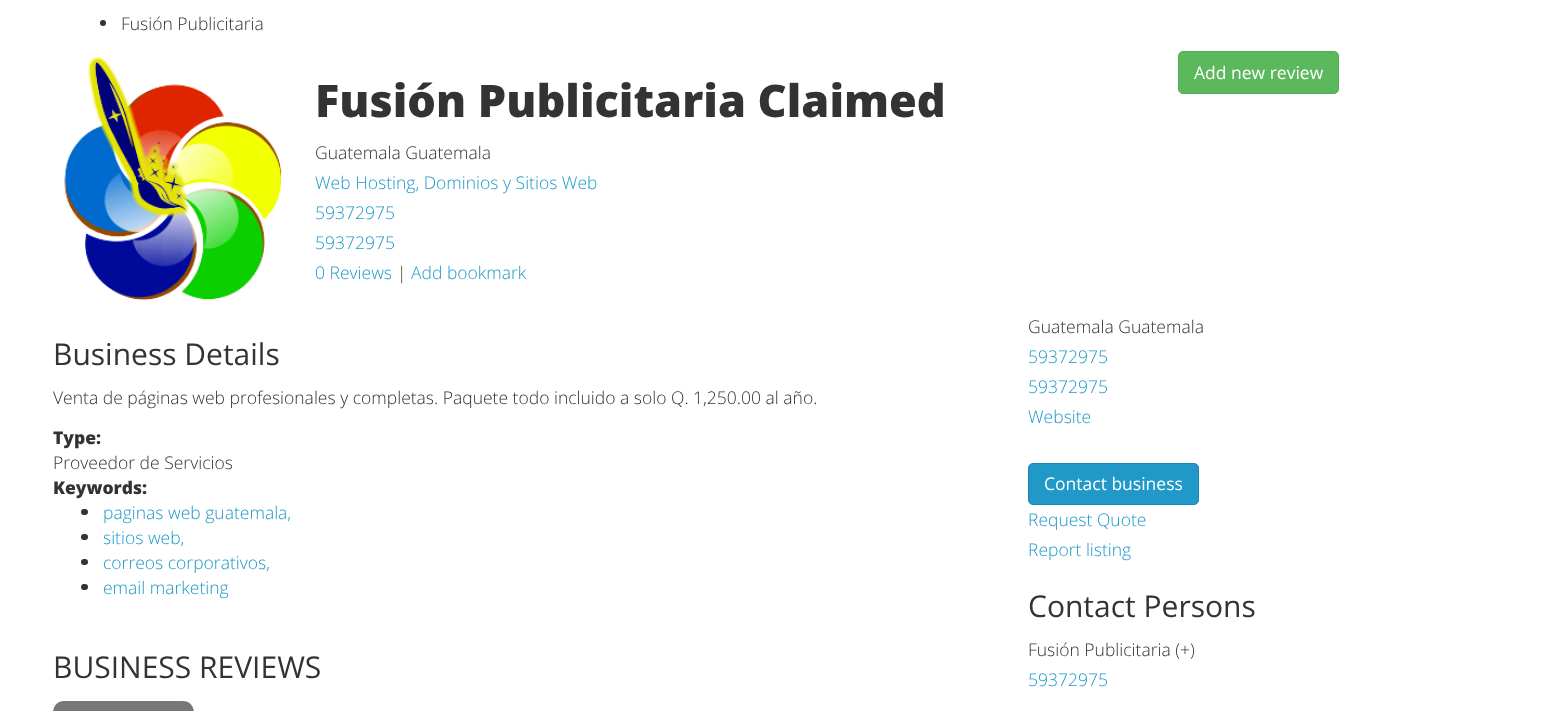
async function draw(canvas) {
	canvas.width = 1567;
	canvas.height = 711;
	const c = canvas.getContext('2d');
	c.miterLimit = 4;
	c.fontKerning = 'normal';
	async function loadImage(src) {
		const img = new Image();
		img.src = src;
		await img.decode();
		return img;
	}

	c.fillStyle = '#fff';
	c.fillRect(0, 0, 1567, 711);
	c.fillStyle = '#333';
	c.beginPath();
	c.arc(103, 23, 3, 0, 2 * Math.PI);
	c.fill();
	c.font = '300 17.5px Open Sans';
	c.fillText('Fusión Publicitaria', 121, 30);
	c.fillStyle = '#5cb85c';
	c.beginPath();
	c.roundRect(1178.5, 51.5, 160, 42, 4.5);
	c.fill();
	c.strokeStyle = '#4cae4c';
	c.stroke();
	c.font = '17.5px Open Sans';
	c.fillStyle = '#fff';
	c.fillText('Add new review', 1194, 79);
	c.drawImage(await loadImage('img1.png'), 64, 56, 218, 245);
	c.font = '800 45px Open Sans';
	c.fillStyle = '#333';
	c.fillText('Fusión Publicitaria Claimed', 315, 117);
	c.font = '300 17.5px Open Sans';
	c.fillText('Guatemala Guatemala', 315, 159);
	c.fillStyle = '#2099c9';
	for (const [text, x, y] of [
		['Web Hosting, Dominios y Sitios Web', 315, 189],
		['59372975', 315, 219],
		['59372975', 315, 249],
		['0 Reviews', 315, 279],
	]) {
		c.fillText(text, x, y);
	}
	c.fillStyle = '#333';
	c.fillText('|', 397, 279);
	c.fillStyle = '#2099c9';
	c.fillText('Add bookmark', 411, 279);
	c.font = '30px Open Sans';
	c.fillStyle = '#333';
	c.fillText('Business Details', 53, 365);
	c.font = '300 17.5px Open Sans';
	c.fillText('Venta de páginas web profesionales y completas. Paquete todo incluido a solo Q. 1,250.00 al año.', 53, 404);
	c.font = '800 17.5px Open Sans';
	c.fillText('Type:', 53, 444);
	c.font = '300 17.5px Open Sans';
	c.fillText('Proveedor de Servicios', 53, 469);
	c.font = '800 17.5px Open Sans';
	c.fillText('Keywords:', 53, 494);
	c.beginPath();
	c.roundRect(81, 509, 7, 6, 3);
	c.fill();
	c.font = '300 17.5px Open Sans';
	c.fillStyle = '#2099c9';
	c.fillText('paginas web guatemala,', 103, 519);
	c.fillStyle = '#333';
	c.beginPath();
	c.roundRect(81, 534, 7, 6, 3);
	c.fill();
	c.fillStyle = '#2099c9';
	c.fillText('sitios web,', 103, 544);
	c.fillStyle = '#333';
	c.beginPath();
	c.roundRect(81, 559, 7, 6, 3);
	c.fill();
	c.fillStyle = '#2099c9';
	c.fillText('correos corporativos,', 103, 569);
	c.fillStyle = '#333';
	c.beginPath();
	c.roundRect(81, 584, 7, 6, 3);
	c.fill();
	c.fillStyle = '#2099c9';
	c.fillText('email marketing', 103, 594);
	c.font = '30px Open Sans';
	c.fillStyle = '#333';
	c.fillText('BUSINESS REVIEWS', 53, 678);
	c.fillStyle = '#777';
	c.beginPath();
	c.roundRect(53, 701, 141, 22, 11.5);
	c.fill();
	c.font = '300 17.5px Open Sans';
	c.fillStyle = '#333';
	c.fillText('Guatemala Guatemala', 1028, 333);
	c.fillStyle = '#2099c9';
	for (const [text, x, y] of [
		['59372975', 1028, 363],
		['59372975', 1028, 393],
		['Website', 1028, 423],
	]) {
		c.fillText(text, x, y);
	}
	c.beginPath();
	c.roundRect(1028.5, 463.5, 170, 41, 4.5);
	c.fill();
	c.strokeStyle = '#1c85af';
	c.stroke();
	c.font = '17.5px Open Sans';
	c.fillStyle = '#fff';
	c.fillText('Contact business', 1044, 490);
	c.font = '300 17.5px Open Sans';
	c.fillStyle = '#2099c9';
	c.fillText('Request Quote', 1028, 526);
	c.fillText('Report listing', 1028, 556);
	c.font = '30px Open Sans';
	c.fillStyle = '#333';
	c.fillText('Contact Persons', 1028, 617);
	c.font = '300 17.5px Open Sans';
	c.fillText('Fusión Publicitaria (+)', 1028, 656);
	c.fillStyle = '#2099c9';
	c.fillText('59372975', 1028, 686);
}

draw(document.querySelector('canvas'));
